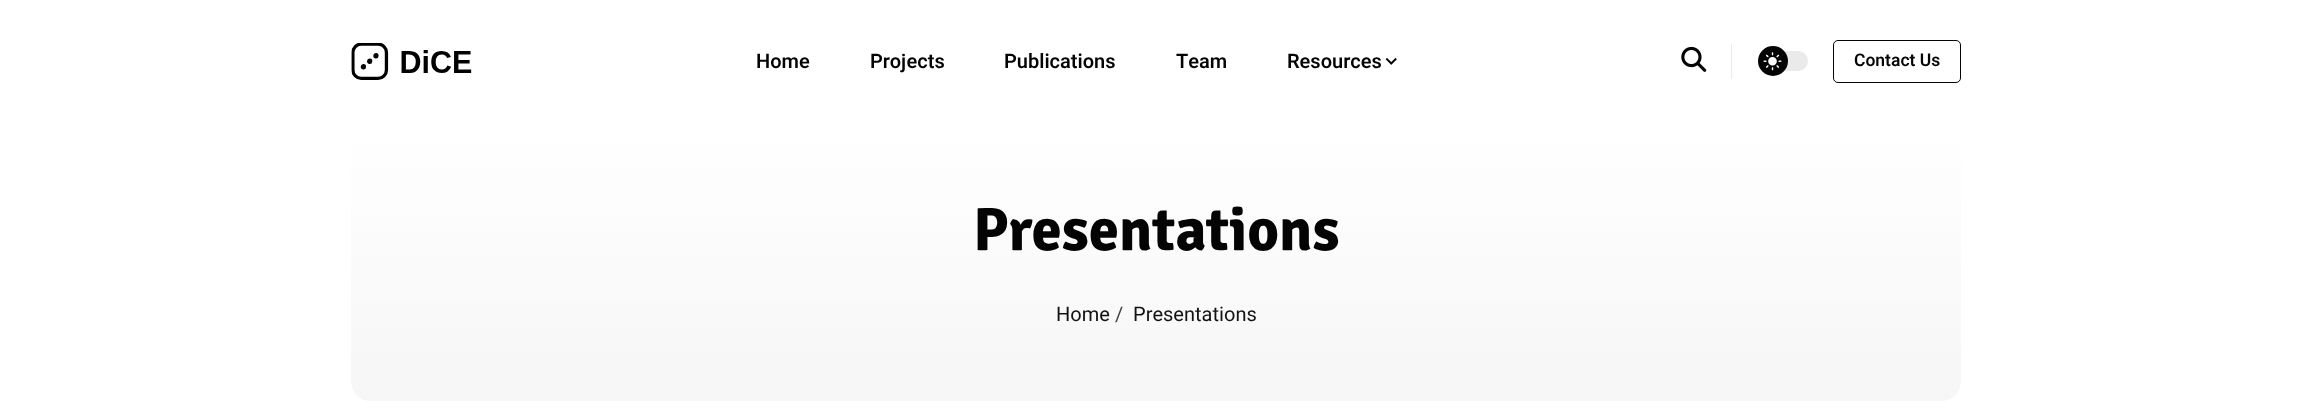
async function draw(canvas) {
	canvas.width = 2312;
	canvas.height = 416;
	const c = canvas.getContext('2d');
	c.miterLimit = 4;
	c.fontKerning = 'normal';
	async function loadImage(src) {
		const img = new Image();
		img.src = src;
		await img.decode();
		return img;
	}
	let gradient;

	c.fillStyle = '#fff';
	c.fillRect(0, 0, 2312, 416);
	c.drawImage(await loadImage('img1.png'), 351, 43, 121, 37);
	c.font = '600 20px Heebo';
	c.fillStyle = '#040404';
	for (const [text, x, y] of [
		['Home', 756, 68],
		['Projects', 870, 68],
		['Publications', 1004, 68],
		['Team', 1176, 68],
		['Resources', 1287, 68],
	]) {
		c.fillText(text, x, y);
	}
	c.drawImage(await loadImage('img2.png'), 1385, 57, 12, 8);
	c.fillStyle = '#eaeaea';
	c.fillRect(1731, 44, 1, 35);
	c.drawImage(await loadImage('img3.png'), 1681, 46, 26, 26);
	c.beginPath();
	c.roundRect(1758, 51, 50, 20, 10);
	c.fill();
	c.fillStyle = '#040404';
	c.beginPath();
	c.arc(1773, 61, 15, 0, 2 * Math.PI);
	c.fill();
	c.drawImage(await loadImage('img4.png'), 1763, 52, 19, 19);
	c.beginPath();
	c.roundRect(1833.5, 40.5, 127, 42, 4.5);
	c.strokeStyle = '#040404';
	c.stroke();
	c.font = '600 17.5px Heebo';
	c.fillText('Contact Us', 1854, 66);
	gradient = c.createLinearGradient(1156, 122, 1156, 401);
	gradient.addColorStop(0, '#fff');
	gradient.addColorStop(1, '#f6f6f6');
	c.fillStyle = gradient;
	c.beginPath();
	c.roundRect(351, 123, 1610, 278, 20);
	c.fill();
	c.font = 'bold 61px Signika';
	c.fillStyle = '#040404';
	c.fillText('Presentations', 973, 250);
	c.font = '20px Heebo';
	c.fillStyle = '#121212';
	c.fillText('Home', 1056, 321);
	c.fillStyle = '#444';
	c.fillText('/', 1115, 321);
	c.fillStyle = '#121212';
	c.fillText('Presentations', 1133, 321);
}

draw(document.querySelector('canvas'));
